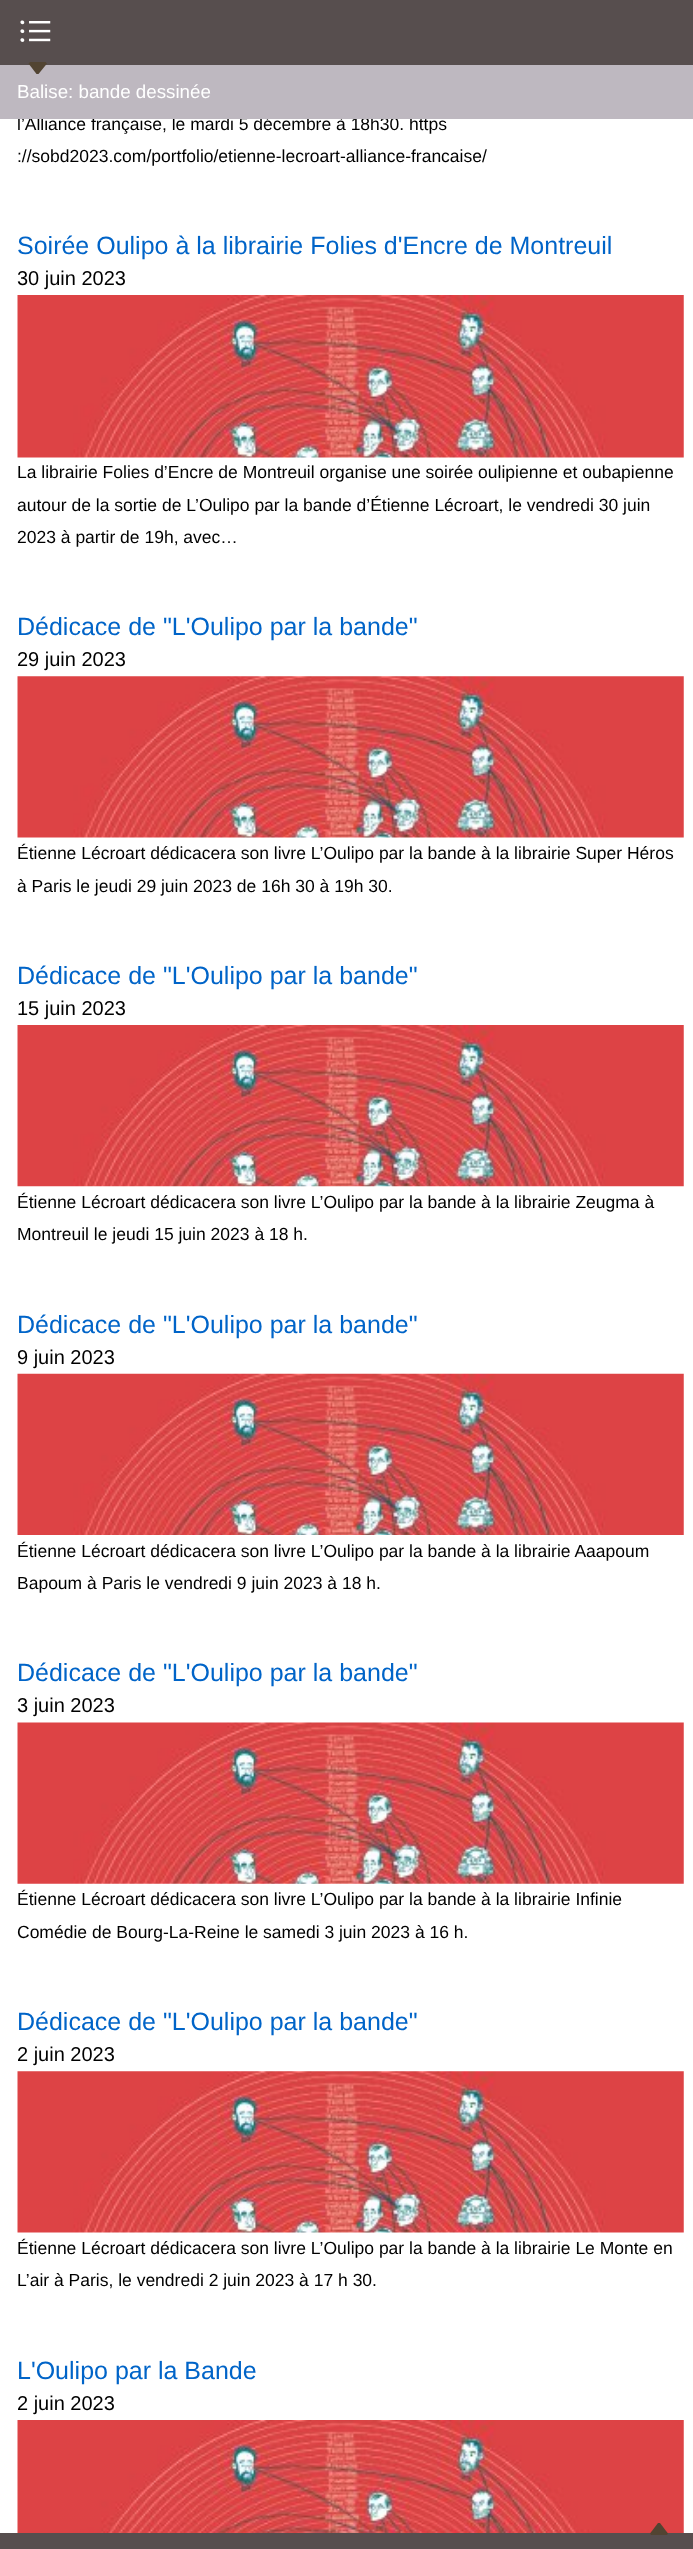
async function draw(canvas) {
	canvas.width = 693;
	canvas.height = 2549;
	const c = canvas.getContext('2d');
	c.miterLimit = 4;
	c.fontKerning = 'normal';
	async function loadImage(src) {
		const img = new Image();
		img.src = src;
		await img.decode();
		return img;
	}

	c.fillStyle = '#fff';
	c.fillRect(0, 0, 693, 2549);
	c.fillStyle = '#574e4e';
	c.fillRect(0, 0, 693, 65);
	c.drawImage(await loadImage('img1.png'), 20, 20, 31, 22);
	c.font = '17.5px Liberation Sans';
	c.fillStyle = '#000';
	c.fillText('l’Alliance française, le mardi 5 décembre à 18h30. https', 17, 130);
	c.fillStyle = '#beb8c0';
	c.fillRect(0, 65, 693, 54);
	c.fillStyle = '#524432';
	c.beginPath();
	c.moveTo(36.5, 74);
	c.lineTo(28.5, 63.5);
	c.lineTo(30, 62);
	c.lineTo(45.5, 62);
	c.lineTo(47, 63.5);
	c.lineTo(38.5, 74);
	c.closePath();
	c.fill();
	c.font = '18.75px Liberation Sans';
	c.fillStyle = '#fff';
	c.fillText('Balise: bande dessinée', 17, 98);
	c.font = '17.5px Liberation Sans';
	c.fillStyle = '#000';
	c.fillText('://sobd2023.com/portfolio/etienne-lecroart-alliance-francaise/', 17, 162);
	c.font = '25px Liberation Sans';
	c.fillStyle = '#0064c8';
	c.fillText('Soirée Oulipo à la librairie Folies d\'Encre de Montreuil', 17, 254);
	c.font = '20px Liberation Sans';
	c.fillStyle = '#000';
	c.fillText('30 juin 2023', 17, 285);
	c.drawImage(await loadImage('img2.png'), 17, 295, 667, 163);
	c.font = '17.5px Liberation Sans';
	for (const [text, x, y] of [
		['La librairie Folies d’Encre de Montreuil organise une soirée oulipienne et oubapienne', 17, 478],
		['autour de la sortie de L’Oulipo par la bande d’Étienne Lécroart, le vendredi 30 juin', 17, 511],
		['2023 à partir de 19h, avec…', 17, 543],
	]) {
		c.fillText(text, x, y);
	}
	c.font = '25px Liberation Sans';
	c.fillStyle = '#0064c8';
	c.fillText('Dédicace de "L\'Oulipo par la bande"', 17, 635);
	c.font = '20px Liberation Sans';
	c.fillStyle = '#000';
	c.fillText('29 juin 2023', 17, 666);
	c.drawImage(await loadImage('img3.png'), 17, 676, 667, 162);
	c.font = '17.5px Liberation Sans';
	c.fillText('Étienne Lécroart dédicacera son livre L’Oulipo par la bande à la librairie Super Héros', 17, 859);
	c.fillText('à Paris le jeudi 29 juin 2023 de 16h 30 à 19h 30.', 17, 892);
	c.font = '25px Liberation Sans';
	c.fillStyle = '#0064c8';
	c.fillText('Dédicace de "L\'Oulipo par la bande"', 17, 984);
	c.font = '20px Liberation Sans';
	c.fillStyle = '#000';
	c.fillText('15 juin 2023', 17, 1015);
	c.drawImage(await loadImage('img4.png'), 17, 1025, 667, 162);
	c.font = '17.5px Liberation Sans';
	c.fillText('Étienne Lécroart dédicacera son livre L’Oulipo par la bande à la librairie Zeugma à', 17, 1208);
	c.fillText('Montreuil le jeudi 15 juin 2023 à 18 h.', 17, 1240);
	c.font = '25px Liberation Sans';
	c.fillStyle = '#0064c8';
	c.fillText('Dédicace de "L\'Oulipo par la bande"', 17, 1333);
	c.font = '20px Liberation Sans';
	c.fillStyle = '#000';
	c.fillText('9 juin 2023', 17, 1364);
	c.drawImage(await loadImage('img5.png'), 17, 1373, 667, 162);
	c.font = '17.5px Liberation Sans';
	c.fillText('Étienne Lécroart dédicacera son livre L’Oulipo par la bande à la librairie Aaapoum', 17, 1557);
	c.fillText('Bapoum à Paris le vendredi 9 juin 2023 à 18 h.', 17, 1589);
	c.font = '25px Liberation Sans';
	c.fillStyle = '#0064c8';
	c.fillText('Dédicace de "L\'Oulipo par la bande"', 17, 1681);
	c.font = '20px Liberation Sans';
	c.fillStyle = '#000';
	c.fillText('3 juin 2023', 17, 1712);
	c.drawImage(await loadImage('img6.png'), 17, 1722, 667, 162);
	c.font = '17.5px Liberation Sans';
	c.fillText('Étienne Lécroart dédicacera son livre L’Oulipo par la bande à la librairie Infinie', 17, 1905);
	c.fillText('Comédie de Bourg-La-Reine le samedi 3 juin 2023 à 16 h.', 17, 1938);
	c.font = '25px Liberation Sans';
	c.fillStyle = '#0064c8';
	c.fillText('Dédicace de "L\'Oulipo par la bande"', 17, 2030);
	c.font = '20px Liberation Sans';
	c.fillStyle = '#000';
	c.fillText('2 juin 2023', 17, 2061);
	c.drawImage(await loadImage('img3.png'), 17, 2071, 667, 162);
	c.font = '17.5px Liberation Sans';
	c.fillText('Étienne Lécroart dédicacera son livre L’Oulipo par la bande à la librairie Le Monte en', 17, 2254);
	c.fillText('L’air à Paris, le vendredi 2 juin 2023 à 17 h 30.', 17, 2286);
	c.font = '25px Liberation Sans';
	c.fillStyle = '#0064c8';
	c.fillText('L\'Oulipo par la Bande', 17, 2379);
	c.font = '20px Liberation Sans';
	c.fillStyle = '#000';
	c.fillText('2 juin 2023', 17, 2410);
	c.drawImage(await loadImage('img7.png'), 17, 2420, 667, 113);
	c.fillStyle = '#574e4e';
	c.fillRect(0, 2533, 693, 16);
	c.fillStyle = '#524432';
	c.beginPath();
	c.moveTo(660, 2523);
	c.lineTo(668, 2533.5);
	c.lineTo(667, 2535);
	c.lineTo(651, 2535);
	c.lineTo(650, 2533.5);
	c.lineTo(658, 2523);
	c.closePath();
	c.fill();
}

draw(document.querySelector('canvas'));
